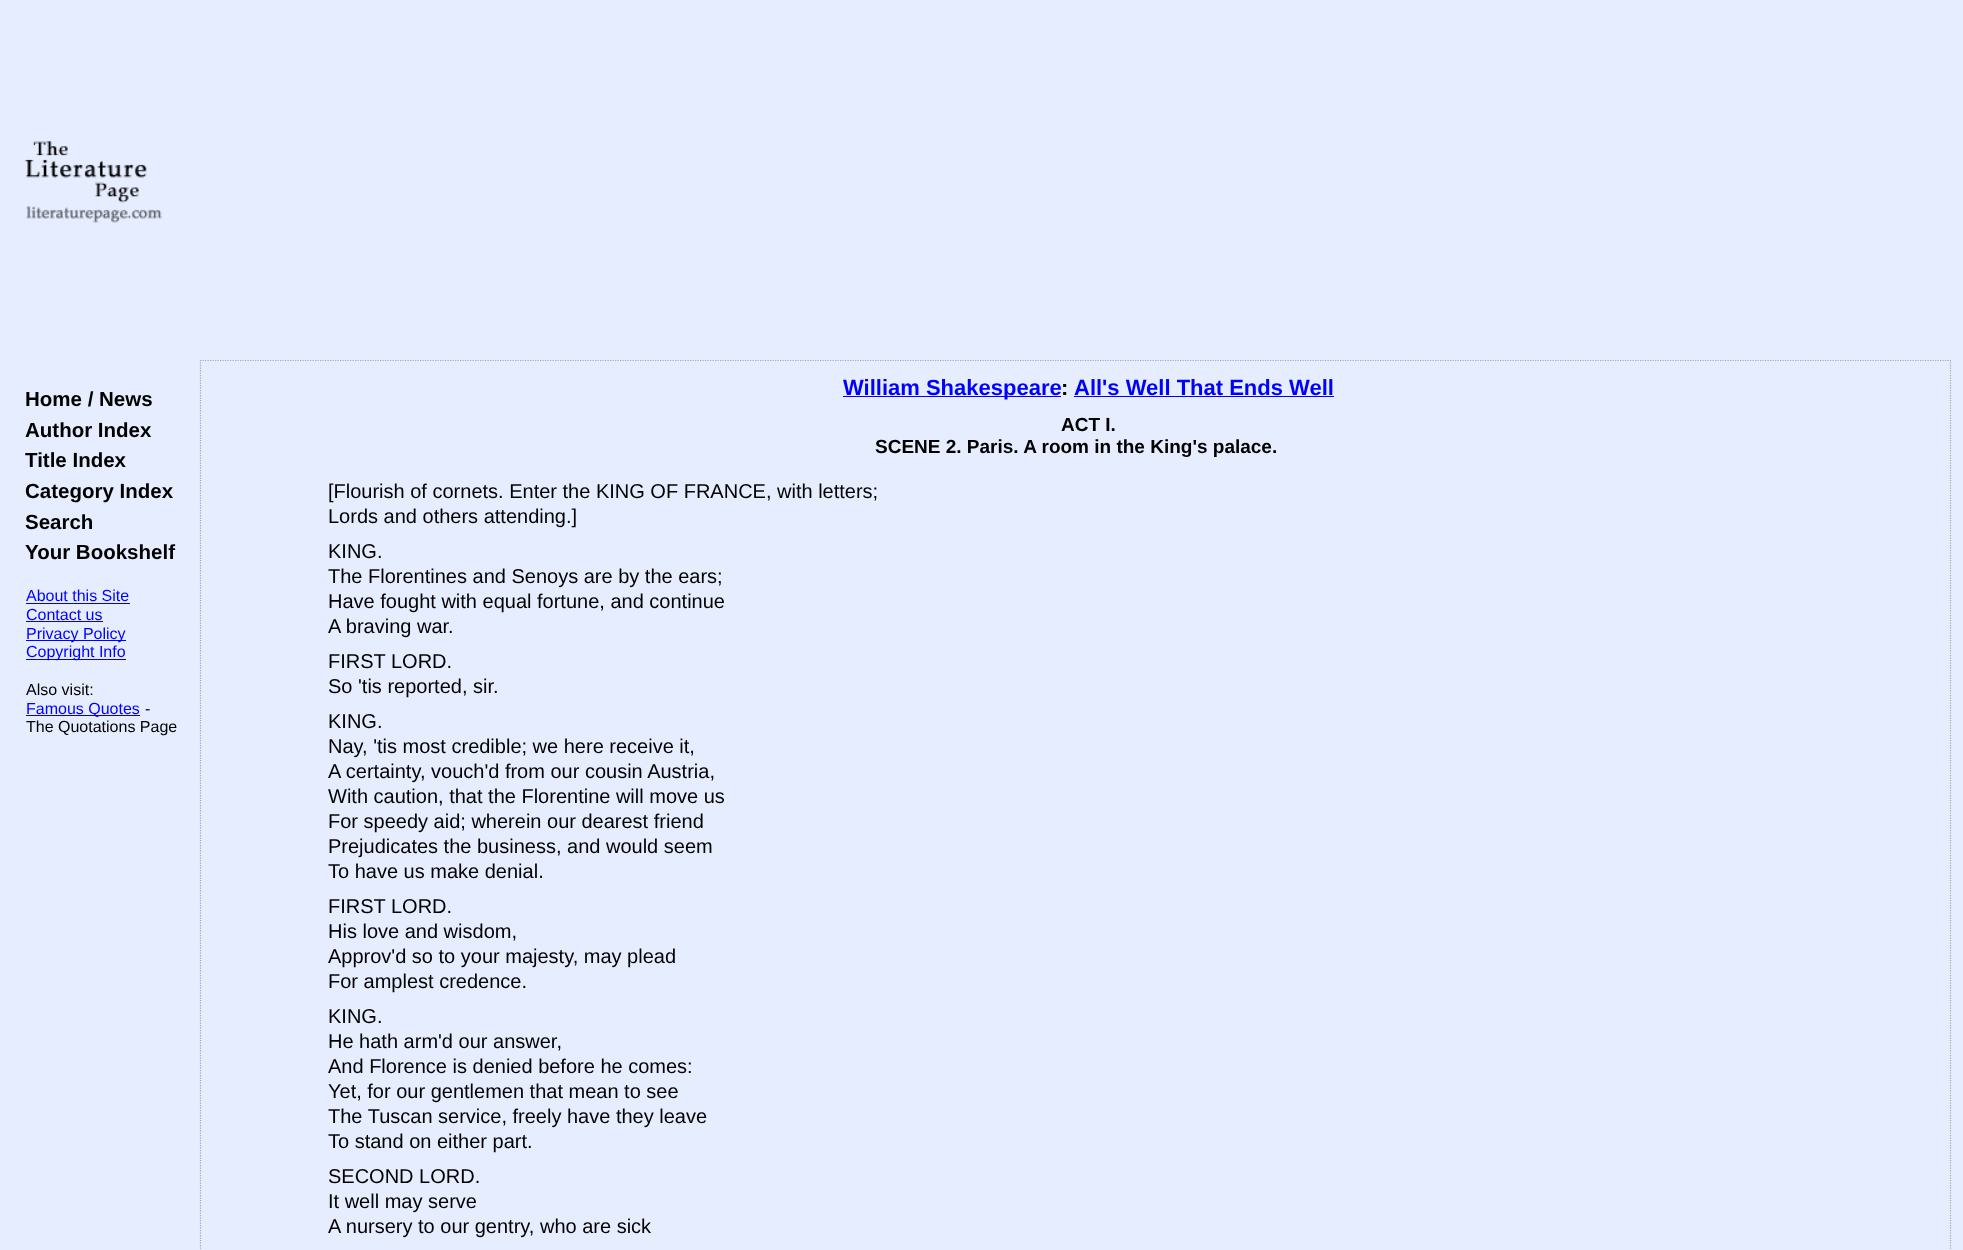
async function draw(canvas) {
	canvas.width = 1963;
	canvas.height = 1250;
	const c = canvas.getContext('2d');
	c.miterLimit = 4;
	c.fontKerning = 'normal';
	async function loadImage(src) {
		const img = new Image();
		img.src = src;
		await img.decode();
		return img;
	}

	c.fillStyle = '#e6edff';
	c.fillRect(0, 0, 1963, 1250);
	c.drawImage(await loadImage('img1.png'), 24, 141, 139, 82);
	c.font = 'bold 20.5px Liberation Sans';
	c.fillStyle = '#000';
	for (const [text, x, y] of [
		['Home / News', 25, 406],
		['Author Index', 25, 437],
		['Title Index', 25, 467],
		['Category Index', 25, 498],
		['Search', 25, 529],
		['Your Bookshelf', 25, 559],
	]) {
		c.fillText(text, x, y);
	}
	c.font = '16px Liberation Sans';
	c.fillStyle = '#00f';
	c.fillText('About this Site', 26, 601);
	c.fillRect(26, 603, 104, 1);
	c.fillText('Contact us', 26, 620);
	c.fillRect(26, 621, 77, 1);
	c.fillRect(26, 640, 100, 1);
	c.fillText('Privacy Policy', 26, 639);
	c.fillRect(26, 659, 100, 1);
	c.fillText('Copyright Info', 26, 657);
	c.fillStyle = '#000';
	c.fillText('Also visit:', 26, 695);
	c.fillStyle = '#00f';
	c.fillRect(26, 715, 114, 1);
	c.fillText('Famous Quotes', 26, 714);
	c.fillStyle = '#000';
	c.fillText('-', 145, 714);
	c.fillText('The Quotations Page', 26, 732);
	c.beginPath();
	c.moveTo(200, 360.5);
	c.lineTo(1951, 360.5);
	c.strokeStyle = '#a6ad9f';
	c.lineWidth = 1.2;
	c.setLineDash([1.25, 1.25]);
	c.stroke();
	c.beginPath();
	c.moveTo(1950.5, 360);
	c.lineTo(1950.5, 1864);
	c.stroke();
	c.beginPath();
	c.moveTo(200.5, 360);
	c.lineTo(200.5, 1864);
	c.stroke();
	c.fillStyle = '#00f';
	c.fillRect(843, 396, 218, 1);
	c.font = 'bold 22px Liberation Sans';
	c.fillText('William Shakespeare', 843, 395);
	c.fillStyle = '#000';
	c.fillText(':', 1061, 395);
	c.fillStyle = '#00f';
	c.fillText('All\'s Well That Ends Well', 1074, 395);
	c.fillRect(1074, 396, 260, 1);
	c.font = 'bold 19px Liberation Sans';
	c.fillStyle = '#000';
	c.fillText('ACT I.', 1061, 431);
	c.fillText('SCENE 2. Paris. A room in the King\'s palace.', 875, 453);
	c.font = '20px Liberation Sans';
	for (const [text, x, y] of [
		['[Flourish of cornets. Enter the KING OF FRANCE, with letters;', 328, 498],
		['Lords and others attending.]', 328, 523],
		['KING.', 328, 558],
		['The Florentines and Senoys are by the ears;', 328, 583],
		['Have fought with equal fortune, and continue', 328, 608],
		['A braving war.', 328, 633],
		['FIRST LORD.', 328, 668],
		['So \'tis reported, sir.', 328, 693],
		['KING.', 328, 728],
		['Nay, \'tis most credible; we here receive it,', 328, 753],
		['A certainty, vouch\'d from our cousin Austria,', 328, 778],
		['With caution, that the Florentine will move us', 328, 803],
		['For speedy aid; wherein our dearest friend', 328, 828],
		['Prejudicates the business, and would seem', 328, 853],
		['To have us make denial.', 328, 878],
		['FIRST LORD.', 328, 913],
		['His love and wisdom,', 328, 938],
		['Approv\'d so to your majesty, may plead', 328, 963],
		['For amplest credence.', 328, 988],
		['KING.', 328, 1023],
		['He hath arm\'d our answer,', 328, 1048],
		['And Florence is denied before he comes:', 328, 1073],
		['Yet, for our gentlemen that mean to see', 328, 1098],
		['The Tuscan service, freely have they leave', 328, 1123],
		['To stand on either part.', 328, 1148],
		['SECOND LORD.', 328, 1183],
		['It well may serve', 328, 1208],
		['A nursery to our gentry, who are sick', 328, 1233],
	]) {
		c.fillText(text, x, y);
	}
}

draw(document.querySelector('canvas'));
